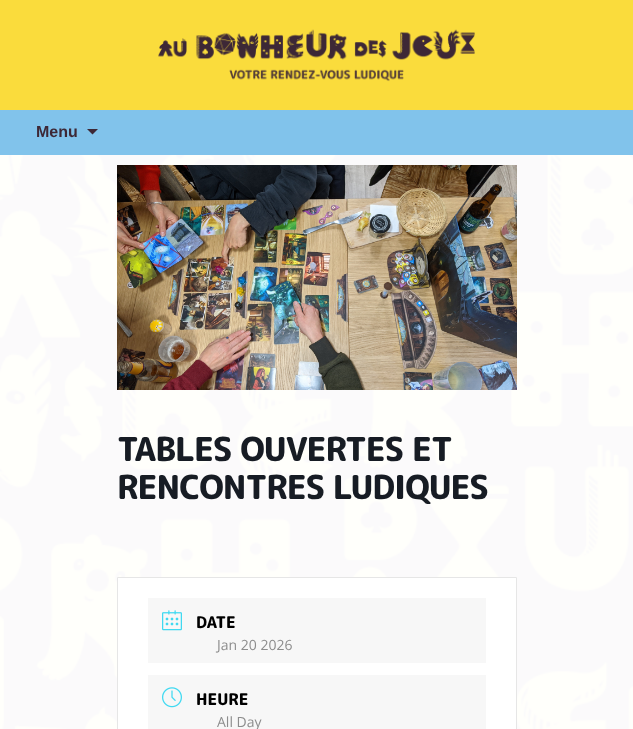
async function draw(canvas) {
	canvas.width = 633;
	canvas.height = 729;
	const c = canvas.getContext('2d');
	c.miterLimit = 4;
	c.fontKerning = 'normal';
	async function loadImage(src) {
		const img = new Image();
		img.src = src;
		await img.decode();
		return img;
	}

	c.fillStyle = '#fff';
	c.fillRect(0, 0, 633, 729);
	c.drawImage(await loadImage('img1.png'), 0, 155, 633, 574);
	c.drawImage(await loadImage('img2.png'), 0, 0, 633, 110);
	c.fillStyle = '#81c3eb';
	c.fillRect(0, 110, 633, 45);
	c.font = 'bold 16px Liberation Sans';
	c.fillStyle = '#3d2836';
	c.fillText('Menu', 36, 137);
	c.beginPath();
	c.moveTo(87, 129);
	c.lineTo(92.5, 134.5);
	c.lineTo(98, 129);
	c.closePath();
	c.fill();
	c.fillStyle = '#fffffffa';
	c.fillRect(0, 155, 633, 574);
	c.drawImage(await loadImage('img3.png'), 117, 165, 400, 225);
	c.letterSpacing = '-1px';
	c.font = '800 33px "Rounded Mplus 1c"';
	c.fillStyle = '#171c24';
	c.fillText('TABLES OUVERTES ET', 117, 461);
	c.fillText('RENCONTRES LUDIQUES', 117, 499);
	c.fillStyle = '#fff';
	c.beginPath();
	c.rect(117.5, 577.5, 399, 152);
	c.fill();
	c.strokeStyle = '#e6e6e6';
	c.stroke();
	c.fillStyle = '#f7f7f7';
	c.fillRect(148, 598, 338, 65);
	c.drawImage(await loadImage('img4.png'), 162, 610, 20, 21);
	c.letterSpacing = '0px';
	c.font = '800 16px "Rounded Mplus 1c"';
	c.fillStyle = '#000';
	c.fillText('DATE', 196, 628);
	c.font = '14px Open Sans';
	c.fillStyle = '#8d8d8d';
	c.fillText('Jan 20 2026', 217, 650);
	c.fillStyle = '#f7f7f7';
	c.fillRect(148, 675, 338, 54);
	c.drawImage(await loadImage('img5.png'), 162, 687, 20, 21);
	c.font = '800 16px "Rounded Mplus 1c"';
	c.fillStyle = '#000';
	c.fillText('HEURE', 196, 705);
	c.font = '14px Open Sans';
	c.fillStyle = '#8d8d8d';
	c.fillText('All Day', 217, 727);
}

draw(document.querySelector('canvas'));
